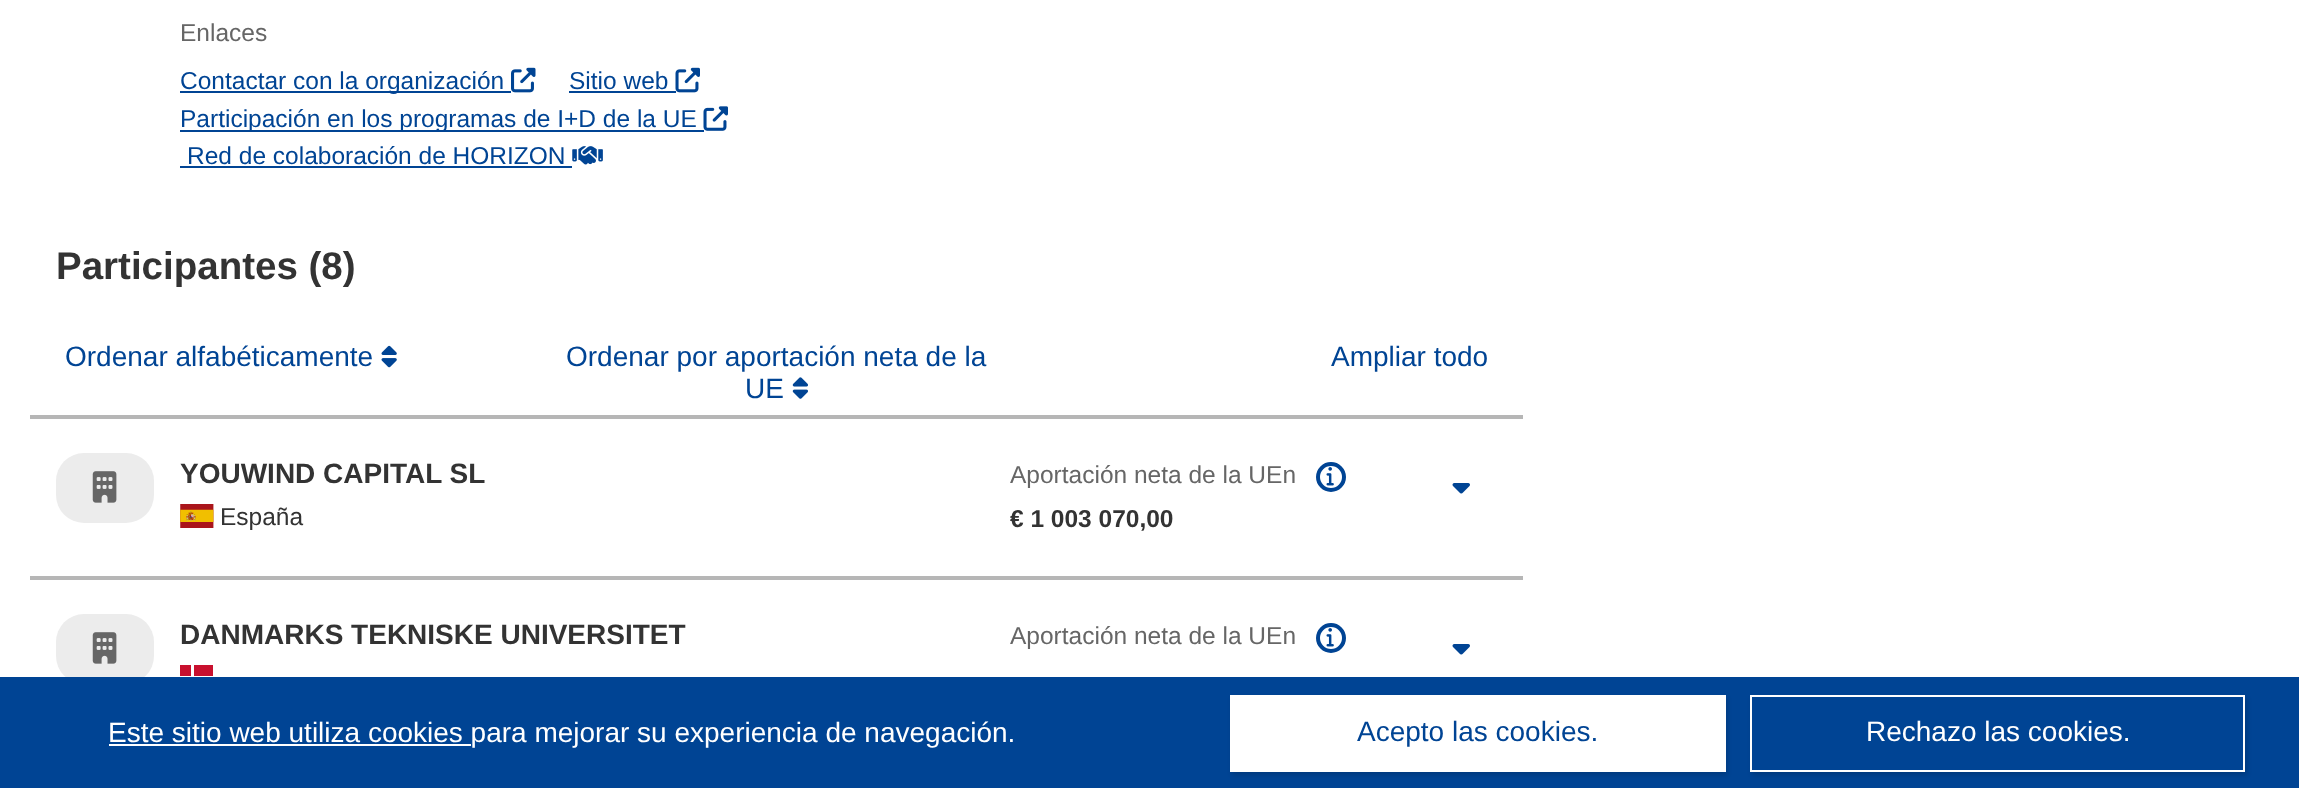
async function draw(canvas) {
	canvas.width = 2299;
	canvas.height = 788;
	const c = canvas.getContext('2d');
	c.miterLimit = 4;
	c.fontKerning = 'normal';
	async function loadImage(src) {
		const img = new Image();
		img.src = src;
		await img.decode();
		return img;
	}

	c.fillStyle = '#fff';
	c.fillRect(0, 0, 2299, 788);
	c.font = '24.5px Liberation Sans';
	c.fillStyle = '#666';
	c.fillText('Enlaces', 180, 41);
	c.fillStyle = '#004494';
	c.fillRect(180, 91, 331, 2);
	c.fillText('Contactar con la organización', 180, 89);
	c.drawImage(await loadImage('img1.png'), 511, 67, 25, 26);
	c.fillText('Sitio web', 569, 89);
	c.fillRect(569, 91, 107, 2);
	c.drawImage(await loadImage('img2.png'), 675, 67, 25, 26);
	c.fillRect(180, 130, 524, 2);
	c.fillText('Participación en los programas de I+D de la UE', 180, 127);
	c.drawImage(await loadImage('img3.png'), 703, 106, 25, 25);
	c.fillText('Red de colaboración de HORIZON', 187, 164);
	c.fillRect(180, 166, 392, 2);
	c.drawImage(await loadImage('img4.png'), 572, 146, 31, 19);
	c.font = 'bold 38.5px Liberation Sans';
	c.fillStyle = '#333';
	c.fillText('Participantes (8)', 56, 279);
	c.font = '28px Liberation Sans';
	c.fillStyle = '#004494';
	c.fillText('Ordenar alfabéticamente', 65, 366);
	c.drawImage(await loadImage('img5.png'), 381, 345, 16, 23);
	c.fillText('Ordenar por aportación neta de la', 566, 366);
	c.fillText('UE', 745, 398);
	c.drawImage(await loadImage('img6.png'), 792, 377, 16, 22);
	c.fillText('Ampliar todo', 1331, 366);
	c.fillStyle = '#b6b6b6';
	c.fillRect(30, 415, 1493, 4);
	c.fillStyle = '#ececec';
	c.beginPath();
	c.roundRect(56, 453, 98, 70, 28);
	c.fill();
	c.drawImage(await loadImage('img7.png'), 92, 471, 25, 32);
	c.font = 'bold 28px Liberation Sans';
	c.fillStyle = '#333';
	c.fillText('YOUWIND CAPITAL SL', 180, 483);
	c.drawImage(await loadImage('img8.png'), 180, 504, 34, 24);
	c.font = '24.5px Liberation Sans';
	c.fillText('España', 220, 525);
	c.fillStyle = '#666';
	c.fillText('Aportación neta de la UEn', 1010, 483);
	c.beginPath();
	c.arc(1331, 477, 13, 0, 2 * Math.PI);
	c.strokeStyle = '#004494';
	c.lineWidth = 4;
	c.stroke();
	c.drawImage(await loadImage('img9.png'), 1326, 467, 8, 19);
	c.font = 'bold 24.5px Liberation Sans';
	c.fillStyle = '#333';
	c.fillText('€ 1 003 070,00', 1010, 527);
	c.drawImage(await loadImage('img10.png'), 1452, 483, 18, 11);
	c.fillStyle = '#b6b6b6';
	c.fillRect(30, 576, 1493, 4);
	c.fillStyle = '#ececec';
	c.beginPath();
	c.roundRect(56, 614, 98, 70, 28);
	c.fill();
	c.drawImage(await loadImage('img7.png'), 92, 632, 25, 32);
	c.font = 'bold 28px Liberation Sans';
	c.fillStyle = '#333';
	c.fillText('DANMARKS TEKNISKE UNIVERSITET', 180, 644);
	c.fillStyle = '#c8102e';
	c.fillRect(180, 665, 33, 11);
	c.fillStyle = '#fff';
	c.fillRect(191, 665, 3, 11);
	c.font = '24.5px Liberation Sans';
	c.fillStyle = '#666';
	c.fillText('Aportación neta de la UEn', 1010, 644);
	c.beginPath();
	c.arc(1331, 638, 13, 0, 2 * Math.PI);
	c.stroke();
	c.drawImage(await loadImage('img9.png'), 1326, 628, 8, 19);
	c.drawImage(await loadImage('img10.png'), 1452, 644, 18, 11);
	c.fillStyle = '#004494';
	c.fillRect(0, 677, 2299, 111);
	c.fillStyle = '#fff';
	c.fillRect(109, 744, 362, 2);
	c.font = '28px Liberation Sans';
	c.fillText('Este sitio web utiliza cookies para mejorar su experiencia de navegación.', 108, 742);
	c.fillStyle = '#00000026';
	c.filter = 'blur(2.5px)';
	c.beginPath();
	c.rect(1232, 698, 495, 77);
	c.fill();
	c.filter = 'none';
	c.fillStyle = '#fff';
	c.fillRect(1230, 695, 496, 77);
	c.fillStyle = '#004494';
	c.fillText('Acepto las cookies.', 1357, 741);
	c.fillStyle = '#00000026';
	c.filter = 'blur(2.5px)';
	c.beginPath();
	c.rect(1752, 698, 495, 77);
	c.fill();
	c.filter = 'none';
	c.fillStyle = '#004494';
	c.beginPath();
	c.rect(1751, 696, 493, 75);
	c.fill();
	c.strokeStyle = '#fff';
	c.lineWidth = 2;
	c.stroke();
	c.fillStyle = '#fff';
	c.fillText('Rechazo las cookies.', 1866, 741);
}

draw(document.querySelector('canvas'));
